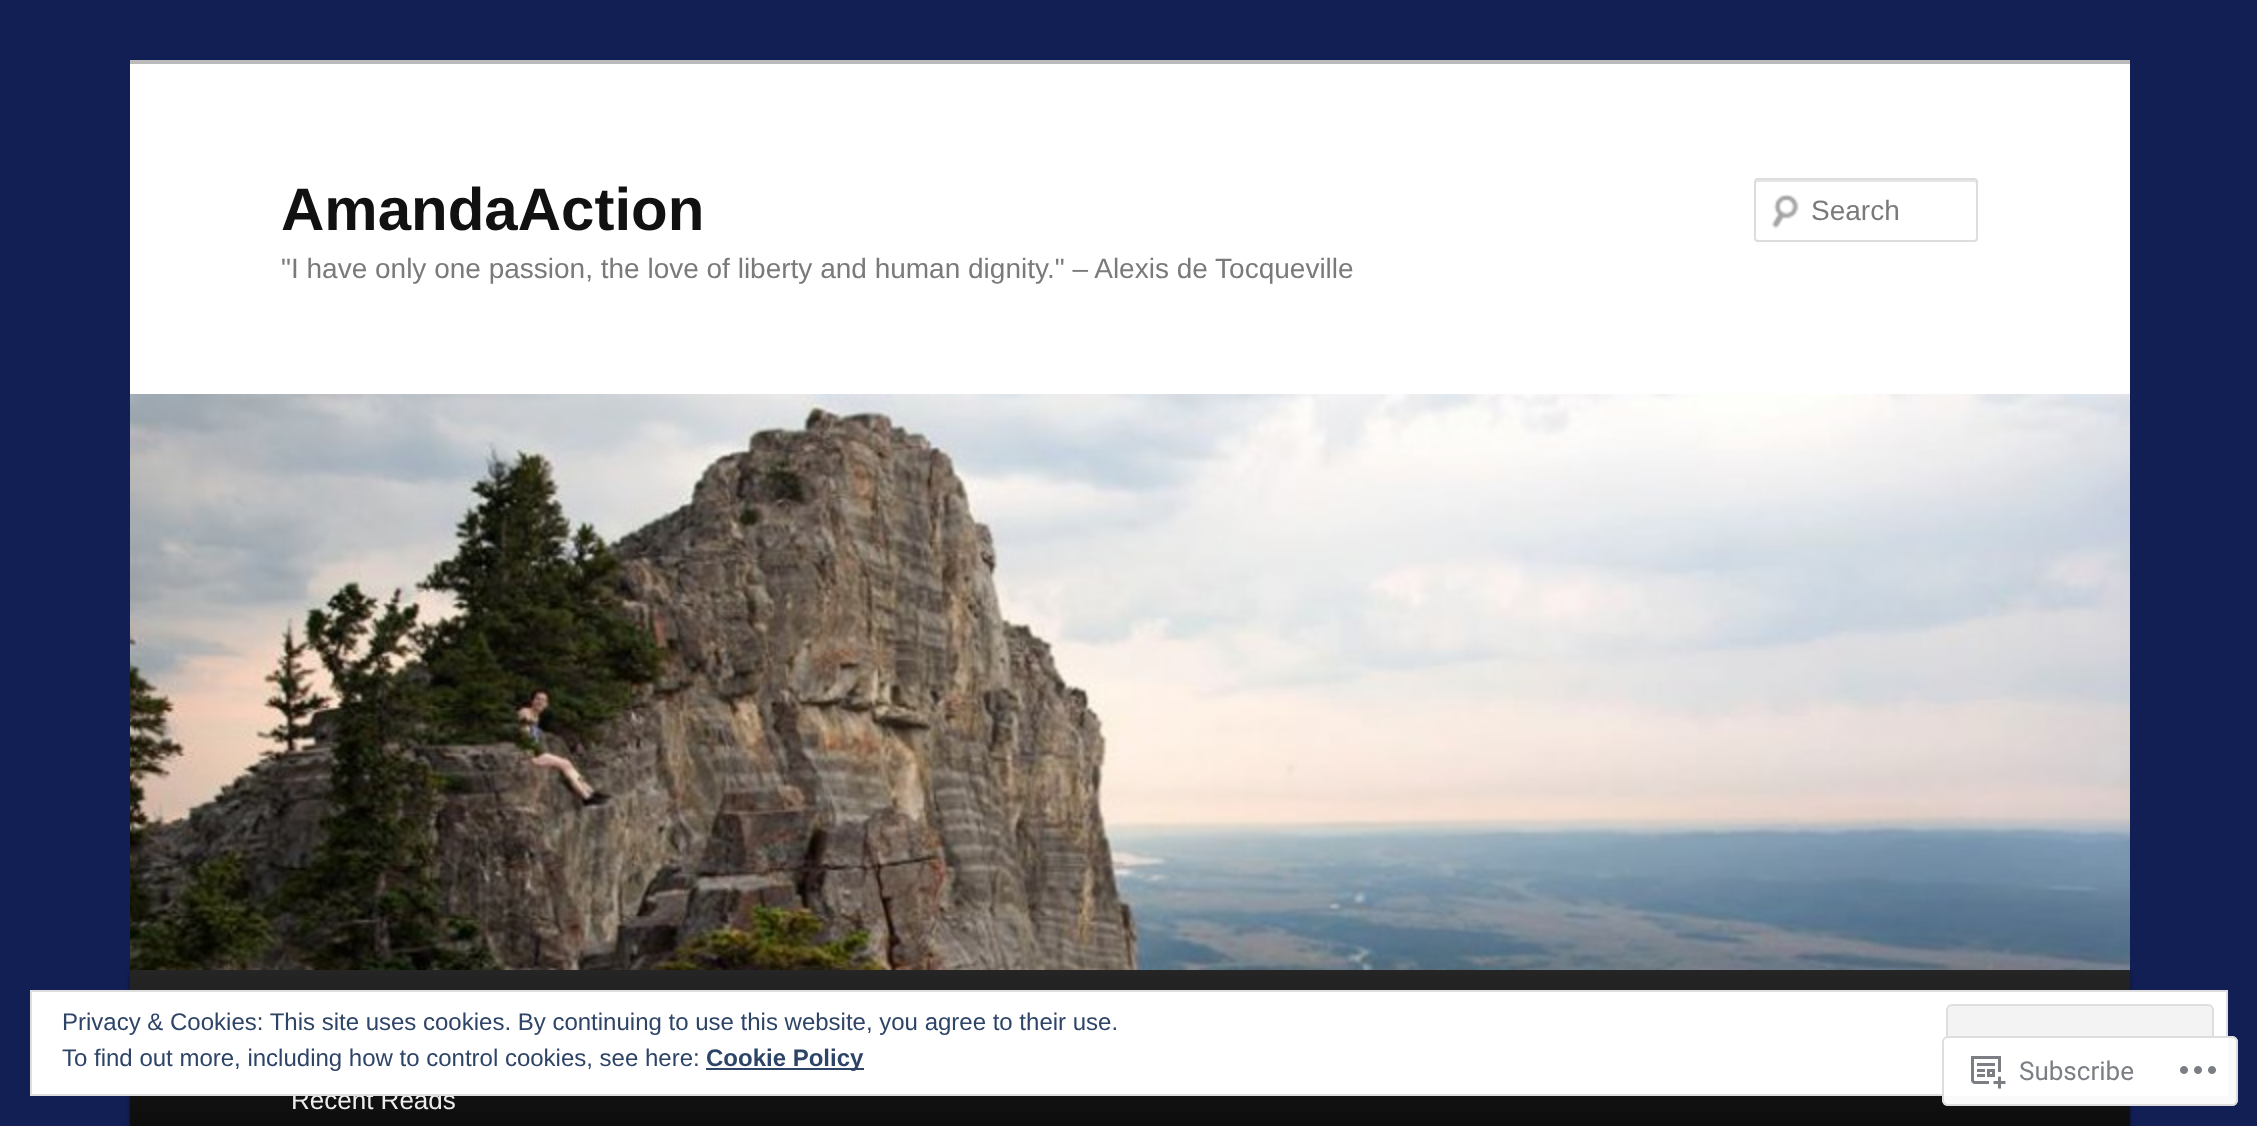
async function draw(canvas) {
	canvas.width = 2257;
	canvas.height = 1126;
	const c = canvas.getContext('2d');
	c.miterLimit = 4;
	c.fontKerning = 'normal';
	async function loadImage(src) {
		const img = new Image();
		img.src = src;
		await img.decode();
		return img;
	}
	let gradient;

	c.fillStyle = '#121f54';
	c.fillRect(0, 0, 2257, 1126);
	c.fillStyle = '#fff';
	c.fillRect(130, 64, 2000, 330);
	c.fillStyle = '#bbb';
	c.fillRect(130, 60, 2000, 4);
	c.font = 'bold 60px Liberation Sans';
	c.fillStyle = '#111';
	c.fillText('AmandaAction', 281, 230);
	c.font = '28px Liberation Sans';
	c.fillStyle = '#7a7a7a';
	c.fillText('"I have only one passion, the love of liberty and human dignity." – Alexis de Tocqueville', 281, 278);
	c.drawImage(await loadImage('img1.png'), 1771, 194, 28, 35);
	c.fillStyle = '#e6e6e6';
	c.beginPath();
	c.moveTo(1758, 182);
	c.lineTo(1974, 182);
	c.bezierCurveTo(1975, 182, 1976, 183, 1976, 184);
	c.lineTo(1976, 182);
	c.bezierCurveTo(1976, 181, 1975, 180, 1974, 180);
	c.lineTo(1758, 180);
	c.bezierCurveTo(1757, 180, 1756, 181, 1756, 182);
	c.lineTo(1756, 184);
	c.bezierCurveTo(1756, 183, 1757, 182, 1758, 182);
	c.closePath();
	c.fill();
	c.beginPath();
	c.roundRect(1755, 179, 222, 62, 3);
	c.strokeStyle = '#ddd';
	c.lineWidth = 2;
	c.stroke();
	c.fillStyle = '#7a7a7a';
	c.fillText('Search', 1811, 220);
	c.fillStyle = '#00000066';
	c.filter = 'blur(2px)';
	c.beginPath();
	c.rect(130, 972, 2000, 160);
	c.fill();
	c.filter = 'none';
	c.drawImage(await loadImage('img2.png'), 130, 394, 2000, 576);
	gradient = c.createLinearGradient(1130, 970, 1130, 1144);
	gradient.addColorStop(0, '#252525');
	gradient.addColorStop(1, '#0a0a0a');
	c.fillStyle = gradient;
	c.fillRect(130, 970, 2000, 156);
	c.font = '26px Liberation Sans';
	c.fillStyle = '#eee';
	c.fillText('Recent Reads', 291, 1109);
	c.fillStyle = '#fff';
	c.beginPath();
	c.rect(31, 991, 2196, 104);
	c.fill();
	c.strokeStyle = '#dedede';
	c.stroke();
	c.font = '24px Liberation Sans';
	c.fillStyle = '#2e4467';
	c.fillText('Privacy & Cookies: This site uses cookies. By continuing to use this website, you agree to their use.', 62, 1030);
	c.fillStyle = '#f3f3f3';
	c.beginPath();
	c.roundRect(1947, 1005, 266, 76, 5);
	c.fill();
	c.stroke();
	c.fillStyle = '#2e4467';
	c.fillText('To find out more, including how to control cookies, see here:', 62, 1066);
	c.fillRect(706, 1068, 158, 2);
	c.font = 'bold 24px Liberation Sans';
	c.fillText('Cookie Policy', 706, 1066);
	c.fillStyle = '#fffffffa';
	c.beginPath();
	c.roundRect(1942, 1036, 296, 70, 6);
	c.fill();
	c.beginPath();
	c.roundRect(1943, 1037, 294, 68, 5);
	c.strokeStyle = '#dcdcdefa';
	c.stroke();
	c.drawImage(await loadImage('img3.png'), 1971, 1056, 35, 33);
	c.font = '26px Roboto';
	c.fillStyle = '#7b7f84';
	c.fillText('Subscribe', 2019, 1080);
	c.drawImage(await loadImage('img4.png'), 2180, 1066, 36, 8);
}

draw(document.querySelector('canvas'));
